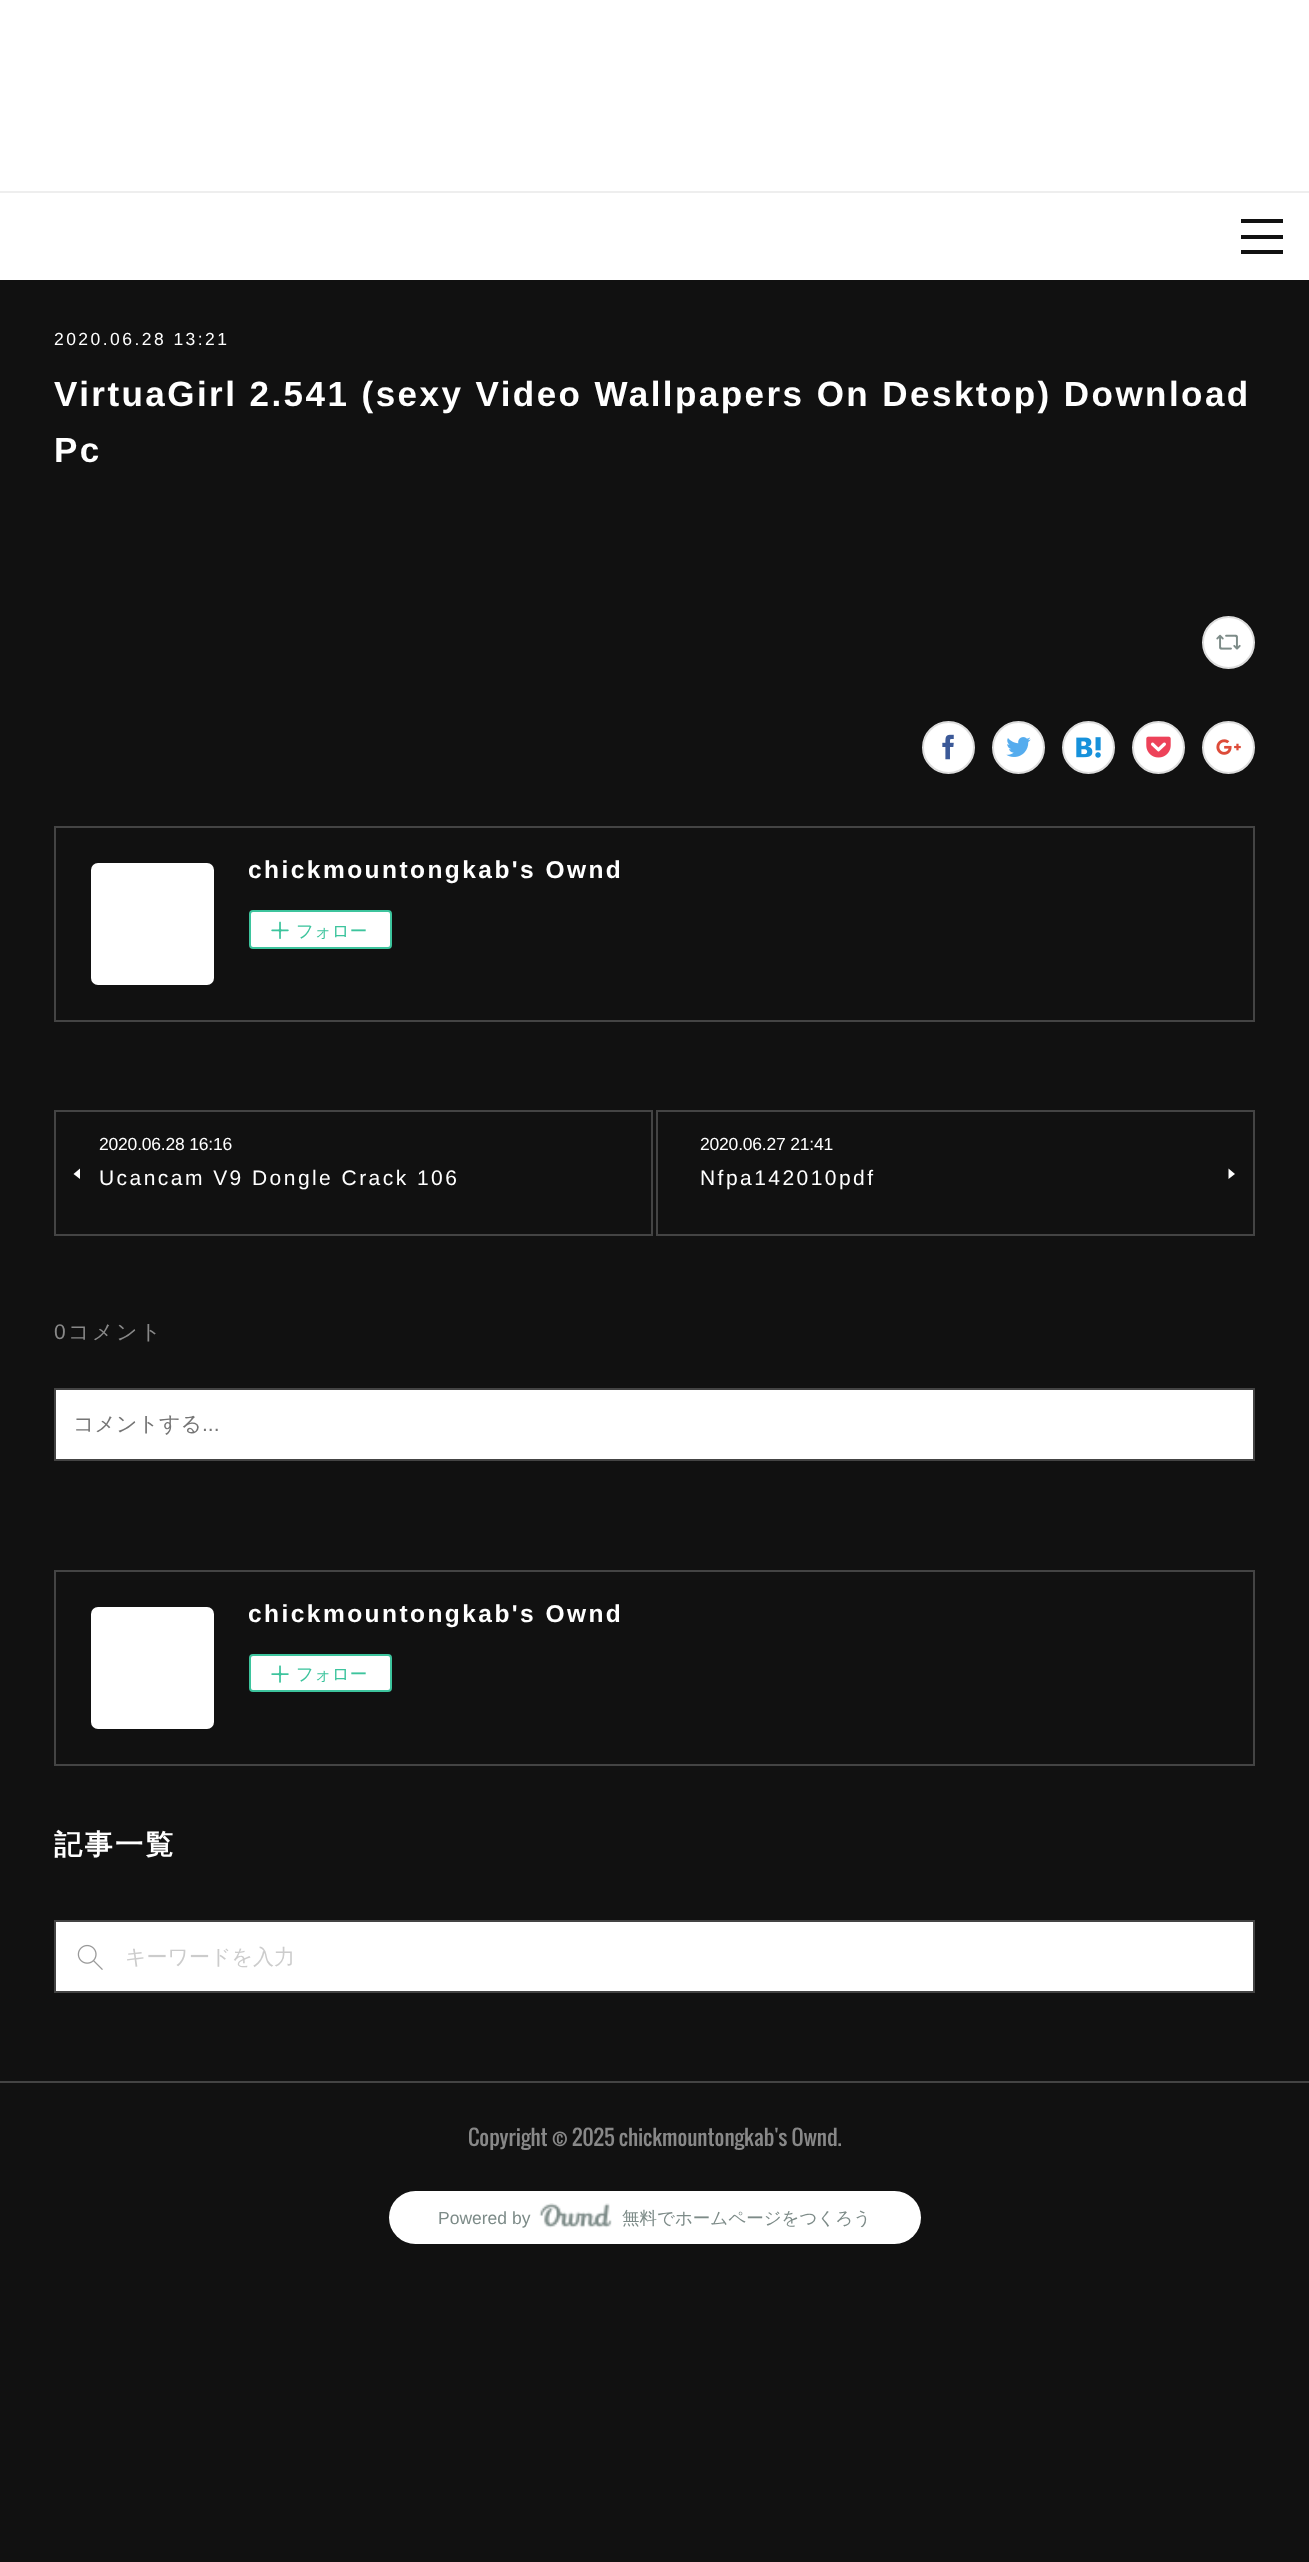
async function draw(canvas) {
	canvas.width = 1309;
	canvas.height = 2562;
	const c = canvas.getContext('2d');
	c.miterLimit = 4;
	c.fontKerning = 'normal';
	async function loadImage(src) {
		const img = new Image();
		img.src = src;
		await img.decode();
		return img;
	}

	c.fillStyle = '#111';
	c.fillRect(0, 0, 1309, 2562);
	for (const [x, y, w, h, color] of [
		[0, 0, 1309, 191, '#fff'],
		[0, 191, 1309, 2, '#eee'],
		[0, 193, 1309, 87, '#fff'],
		[1241, 219, 42, 4, '#111'],
		[1241, 235, 42, 4, '#111'],
		[1241, 250, 42, 4, '#111'],
	]) {
		c.fillStyle = color;
		c.fillRect(x, y, w, h);
	}
	c.letterSpacing = '2.45px';
	c.font = '17.5px Liberation Sans';
	c.fillStyle = '#fff';
	c.fillText('2020.06.28 13:21', 54, 345);
	c.font = 'bold 35px Liberation Sans';
	c.fillText('VirtuaGirl 2.541 (sexy Video Wallpapers On Desktop) Download', 54, 406);
	c.fillText('Pc', 54, 462);
	c.beginPath();
	c.arc(1228.5, 642.5, 25.5, 0, 2 * Math.PI);
	c.fill();
	c.strokeStyle = '#ddd';
	c.lineWidth = 2;
	c.stroke();
	c.drawImage(await loadImage('img1.png'), 1216, 634, 25, 16);
	c.beginPath();
	c.arc(948.5, 747.5, 25.5, 0, 2 * Math.PI);
	c.fill();
	c.stroke();
	c.drawImage(await loadImage('img2.png'), 942, 734, 12, 26);
	c.beginPath();
	c.arc(1018.5, 747.5, 25.5, 0, 2 * Math.PI);
	c.fill();
	c.stroke();
	c.drawImage(await loadImage('img3.png'), 1006, 737, 25, 20);
	c.beginPath();
	c.arc(1088.5, 747.5, 25.5, 0, 2 * Math.PI);
	c.fill();
	c.stroke();
	c.drawImage(await loadImage('img4.png'), 1076, 737, 25, 21);
	c.beginPath();
	c.arc(1158.5, 747.5, 25.5, 0, 2 * Math.PI);
	c.fill();
	c.stroke();
	c.drawImage(await loadImage('img5.png'), 1146, 736, 25, 22);
	c.beginPath();
	c.arc(1228.5, 747.5, 25.5, 0, 2 * Math.PI);
	c.fill();
	c.stroke();
	c.drawImage(await loadImage('img6.png'), 1216, 739, 25, 16);
	c.strokeStyle = '#444';
	c.strokeRect(55, 827, 1199, 194);
	c.beginPath();
	c.roundRect(91, 863, 123, 122, 7);
	c.fill();
	c.save();
	c.beginPath();
	c.rect(249, 854, 374, 35);
	c.clip();
	c.font = 'bold 24.5px Liberation Sans';
	c.fillText('chickmountongkab\'s Ownd', 248, 878);
	c.restore();
	c.beginPath();
	c.roundRect(250, 911, 141, 37, 3);
	c.fill();
	c.strokeStyle = '#3dc49d';
	c.stroke();
	c.drawImage(await loadImage('img7.png'), 271, 921, 18, 18);
	c.letterSpacing = '0px';
	c.font = '500 17.5px WenQuanYi Zen Hei';
	c.fillStyle = '#3dc49d';
	c.fillText('フォロー', 296, 937);
	c.strokeStyle = '#444';
	c.strokeRect(55, 1111, 597, 124);
	c.letterSpacing = '-0.2px';
	c.font = '17.5px Liberation Sans';
	c.fillStyle = '#fff';
	c.fillText('2020.06.28 16:16', 99, 1150);
	c.beginPath();
	c.moveTo(80, 1179);
	c.lineTo(80, 1168.5);
	c.lineTo(73.5, 1174);
	c.closePath();
	c.fill();
	c.letterSpacing = '2.45px';
	c.font = '21px Liberation Sans';
	c.fillText('Ucancam V9 Dongle Crack 106', 99, 1185);
	c.strokeRect(657, 1111, 597, 124);
	c.letterSpacing = '-0.2px';
	c.font = '17.5px Liberation Sans';
	c.fillText('2020.06.27 21:41', 700, 1150);
	c.letterSpacing = '2.45px';
	c.font = '21px Liberation Sans';
	c.fillText('Nfpa142010pdf', 700, 1185);
	c.beginPath();
	c.moveTo(1228.5, 1168.5);
	c.lineTo(1228.5, 1179);
	c.lineTo(1235, 1174);
	c.closePath();
	c.fill();
	c.fillStyle = '#888';
	c.fillText('0', 54, 1339);
	c.font = '500 21px WenQuanYi Zen Hei';
	c.fillText('コメント', 68, 1339);
	c.fillStyle = '#fff';
	c.beginPath();
	c.rect(55, 1389, 1199, 71);
	c.fill();
	c.stroke();
	c.letterSpacing = '0px';
	c.fillStyle = '#757575';
	c.fillText('コメントする', 73, 1431);
	c.font = '21px Liberation Sans';
	c.fillText('...', 202, 1431);
	c.strokeRect(55, 1571, 1199, 194);
	c.fillStyle = '#fff';
	c.beginPath();
	c.roundRect(91, 1607, 123, 122, 7);
	c.fill();
	c.save();
	c.beginPath();
	c.rect(249, 1598, 374, 33);
	c.clip();
	c.letterSpacing = '2.45px';
	c.font = 'bold 24.5px Liberation Sans';
	c.fillText('chickmountongkab\'s Ownd', 248, 1622);
	c.restore();
	c.beginPath();
	c.roundRect(250, 1655, 141, 36, 3);
	c.fill();
	c.strokeStyle = '#3dc49d';
	c.stroke();
	c.drawImage(await loadImage('img8.png'), 271, 1665, 18, 18);
	c.font = '500 17.5px WenQuanYi Zen Hei';
	c.fillStyle = '#3dc49d';
	c.fillText('フォロー', 296, 1680);
	c.letterSpacing = '2.45px';
	c.font = 'bold 28px WenQuanYi Zen Hei';
	c.fillStyle = '#fff';
	c.fillText('記事一覧', 54, 1854);
	c.beginPath();
	c.rect(55, 1921, 1199, 71);
	c.fill();
	c.strokeStyle = '#444';
	c.stroke();
	c.drawImage(await loadImage('img9.png'), 77, 1944, 26, 26);
	c.letterSpacing = '0px';
	c.font = '500 21px WenQuanYi Zen Hei';
	c.fillStyle = '#ccc';
	c.fillText('キーワードを入力', 125, 1964);
	c.fillStyle = '#444';
	c.fillRect(0, 2081, 1309, 2);
	c.font = '21px Oswald';
	c.fillStyle = '#888';
	c.fillText('Copyright © 2025 chickmountongkab\'s Ownd.', 468, 2146);
	c.fillStyle = '#fff';
	c.beginPath();
	c.roundRect(389, 2191, 532, 53, 26.5);
	c.fill();
	c.font = '17.5px Liberation Sans';
	c.fillStyle = '#7d8b88';
	c.fillText('Powered by', 438, 2224);
	c.drawImage(await loadImage('img10.png'), 539, 2203, 73, 25);
	c.font = '500 17.5px WenQuanYi Zen Hei';
	c.fillText('無料でホームページをつくろう', 622, 2224);
}

draw(document.querySelector('canvas'));
